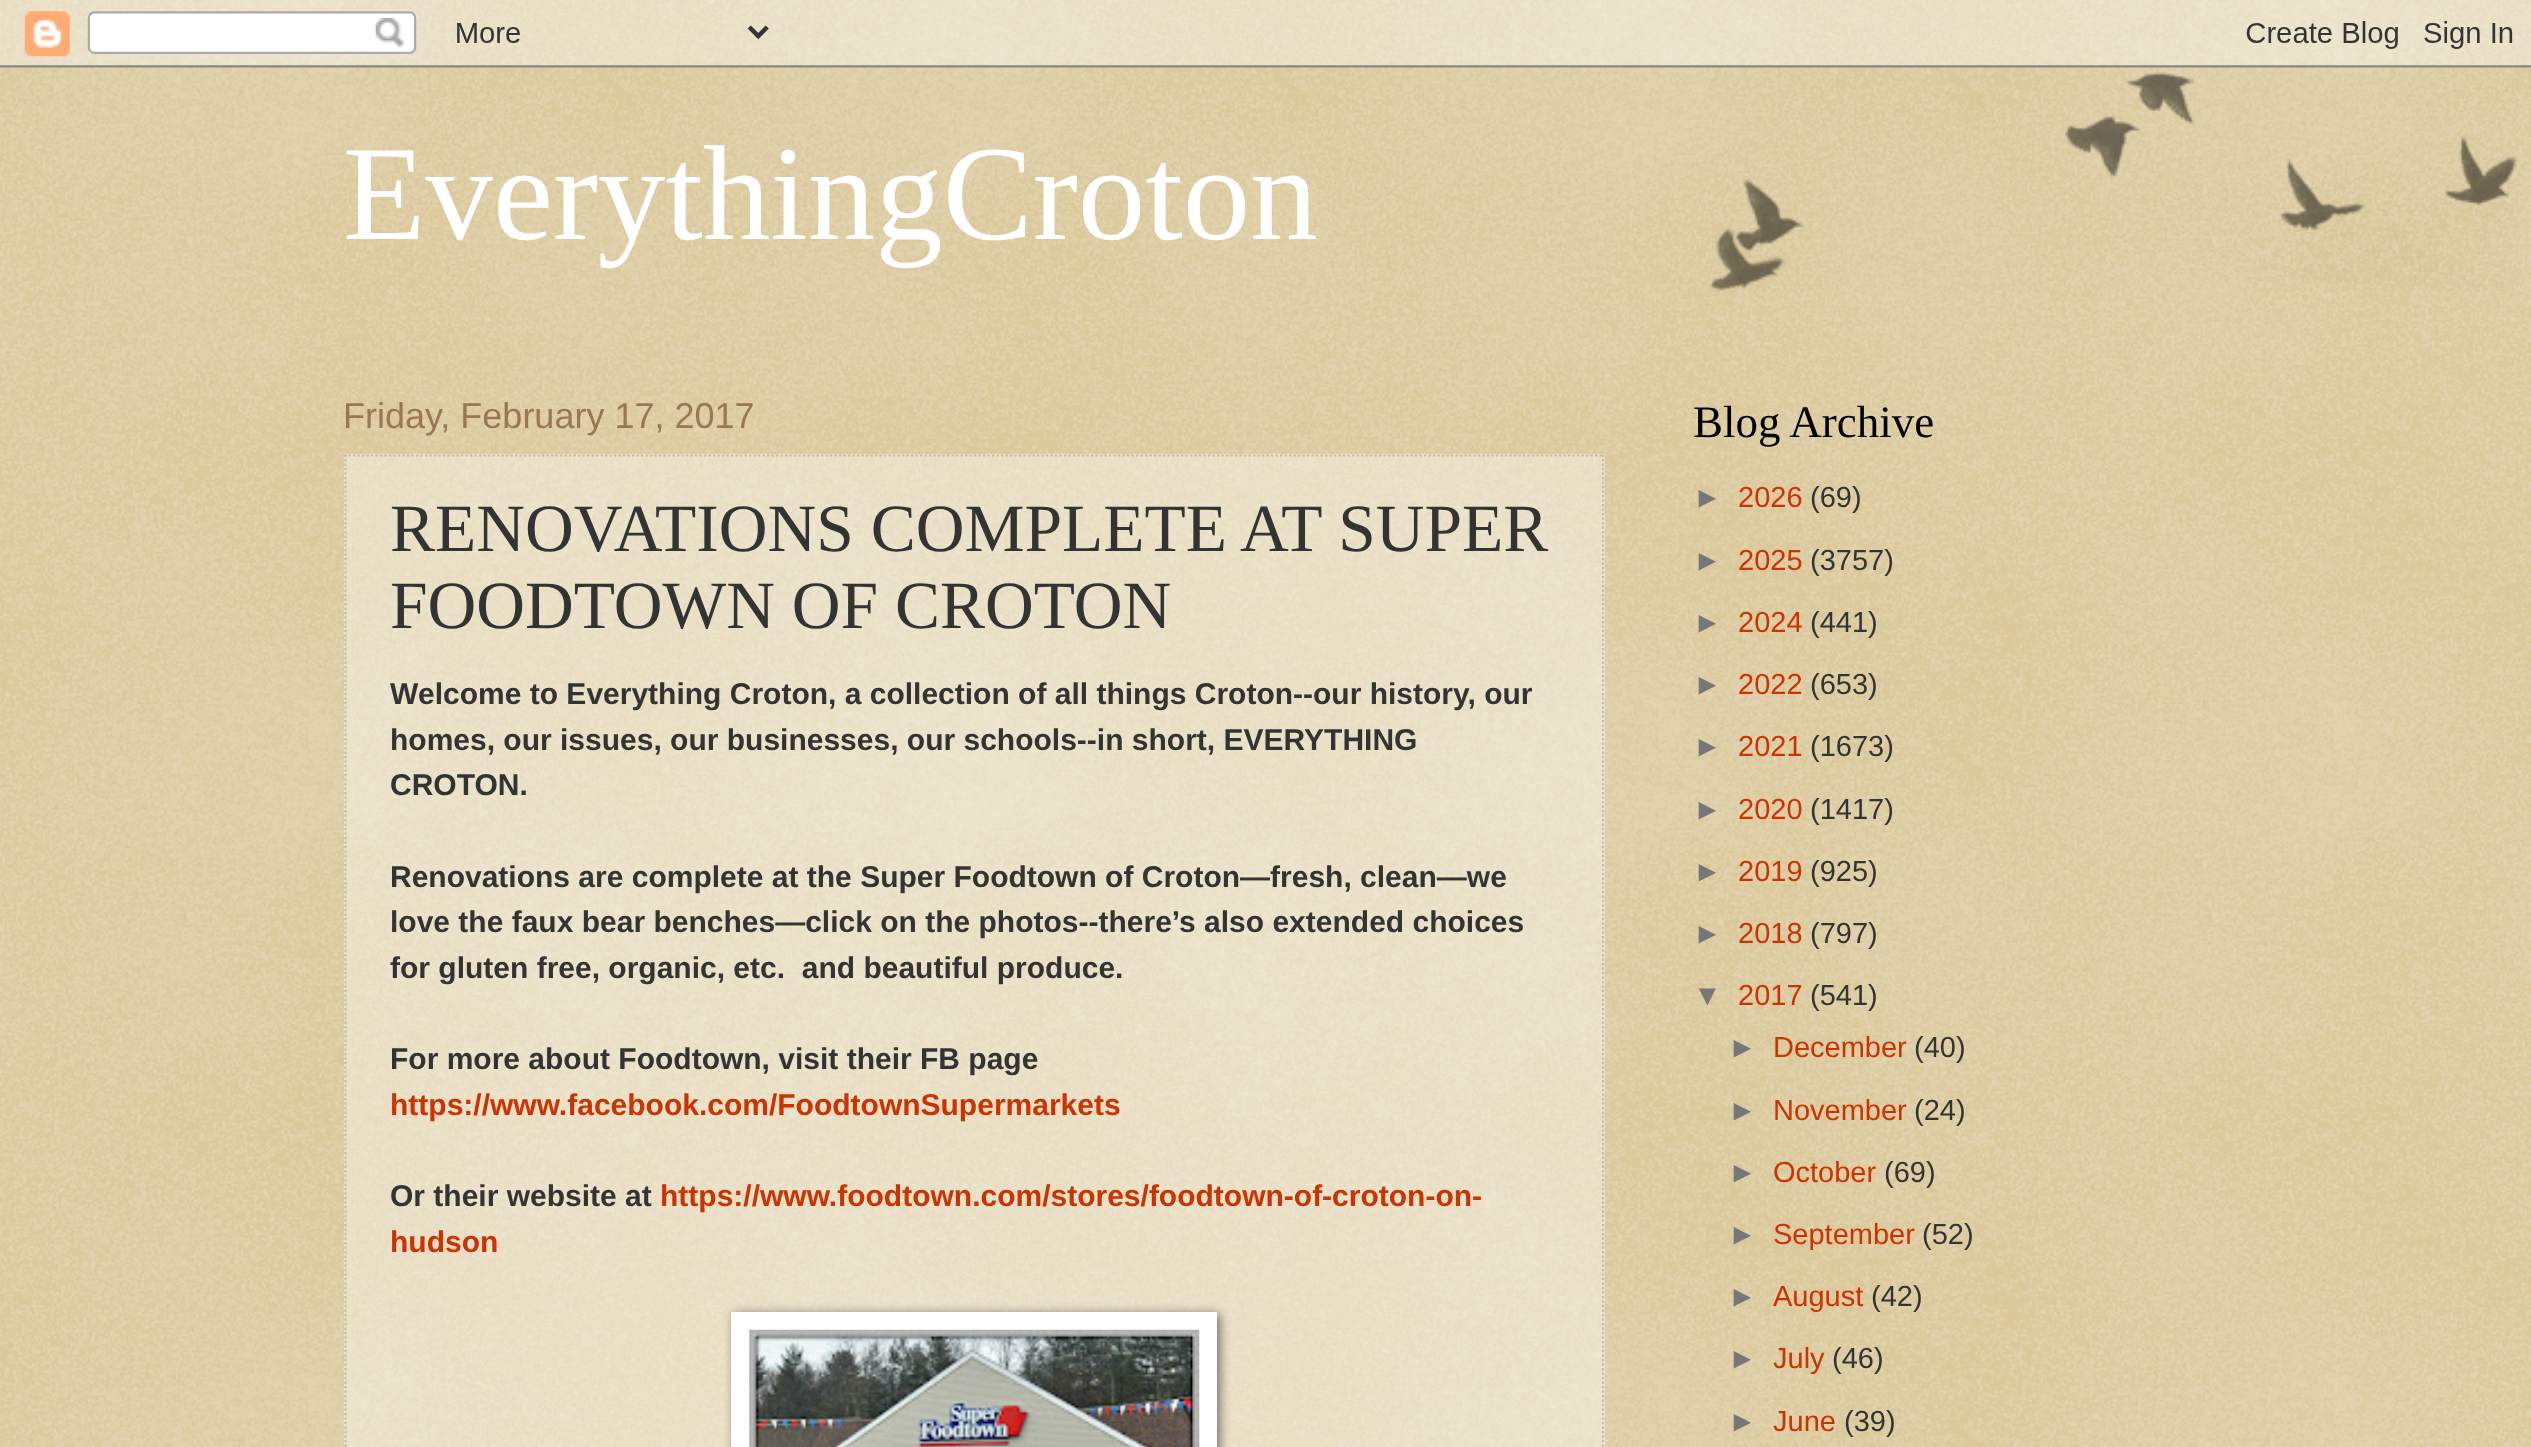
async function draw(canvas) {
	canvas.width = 2531;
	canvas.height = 1447;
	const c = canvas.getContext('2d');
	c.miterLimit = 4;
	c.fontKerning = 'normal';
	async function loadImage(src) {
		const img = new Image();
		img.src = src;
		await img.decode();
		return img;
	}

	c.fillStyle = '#c0a154';
	c.fillRect(0, 0, 2531, 1447);
	c.drawImage(await loadImage('img1.png'), 0, 0, 2531, 1447);
	c.drawImage(await loadImage('img2.png'), 0, 0, 2531, 68);
	c.font = '135px Liberation Serif';
	c.fillStyle = '#fff';
	c.fillText('EverythingCroton', 343, 239);
	c.font = '36px Liberation Sans';
	c.fillStyle = '#975';
	c.fillText('Friday, February 17, 2017', 343, 428);
	c.fillStyle = '#ffffff66';
	c.fillRect(344, 454, 1261, 993);
	c.beginPath();
	c.moveTo(344, 455.5);
	c.lineTo(1604, 455.5);
	c.strokeStyle = '#cb9';
	c.lineWidth = 2.2;
	c.setLineDash([2.25, 2.25]);
	c.stroke();
	c.beginPath();
	c.moveTo(1603, 454.5);
	c.lineTo(1603, 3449);
	c.stroke();
	c.beginPath();
	c.moveTo(345.5, 454.5);
	c.lineTo(345.5, 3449);
	c.stroke();
	c.font = '67.5px Liberation Serif';
	c.fillStyle = '#333';
	c.fillText('RENOVATIONS COMPLETE AT SUPER', 390, 551);
	c.fillText('FOODTOWN OF CROTON', 390, 628);
	c.font = 'bold 30px Liberation Sans';
	for (const [text, x, y] of [
		['W', 390, 704],
		['elcome to Everything Croton, a collection of all things Croton--our history, our', 418, 704],
		['homes, our issues, our businesses, our schools--in short, EVERYTHING', 390, 750],
		['CROTON.', 390, 795],
		['Renovations are complete at the Super Foodtown of Croton—fresh, clean—we', 390, 887],
		['love the faux bear benches—click on the photos--there’s also extended choices', 390, 932],
		['for gluten free, organic, etc.  and beautiful produce.', 390, 978],
		['For more about Foodtown, visit their FB page', 390, 1069],
	]) {
		c.fillText(text, x, y);
	}
	c.fillStyle = '#c30';
	c.fillText('https://www.facebook.com/FoodtownSupermarkets', 390, 1115);
	c.fillStyle = '#333';
	c.fillText('Or their website at', 390, 1206);
	c.fillStyle = '#c30';
	c.fillText('https://www.foodtown.com/stores/foodtown-of-croton-on-', 660, 1206);
	c.fillText('hudson', 390, 1252);
	c.fillStyle = '#00000080';
	c.filter = 'blur(5.5px)';
	c.beginPath();
	c.rect(734, 1314, 486, 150);
	c.fill();
	c.filter = 'none';
	c.fillStyle = '#fff';
	c.fillRect(731, 1312, 486, 135);
	c.drawImage(await loadImage('img3.png'), 749, 1329, 451, 118);
	c.font = '45px Liberation Serif';
	c.fillStyle = '#000';
	c.fillText('Blog Archive', 1693, 437);
	c.font = '29px Liberation Sans';
	c.fillStyle = '#777';
	c.fillText('►', 1693, 507);
	c.fillStyle = '#c30';
	c.fillText('2026', 1738, 507);
	c.fillStyle = '#333';
	c.fillText('(69)', 1810, 507);
	c.fillStyle = '#777';
	c.fillText('►', 1693, 570);
	c.fillStyle = '#c30';
	c.fillText('2025', 1738, 570);
	c.fillStyle = '#333';
	c.fillText('(3757)', 1810, 570);
	c.fillStyle = '#777';
	c.fillText('►', 1693, 632);
	c.fillStyle = '#c30';
	c.fillText('2024', 1738, 632);
	c.fillStyle = '#333';
	c.fillText('(441)', 1810, 632);
	c.fillStyle = '#777';
	c.fillText('►', 1693, 694);
	c.fillStyle = '#c30';
	c.fillText('2022', 1738, 694);
	c.fillStyle = '#333';
	c.fillText('(653)', 1810, 694);
	c.fillStyle = '#777';
	c.fillText('►', 1693, 756);
	c.fillStyle = '#c30';
	c.fillText('2021', 1738, 756);
	c.fillStyle = '#333';
	c.fillText('(1673)', 1810, 756);
	c.fillStyle = '#777';
	c.fillText('►', 1693, 819);
	c.fillStyle = '#c30';
	c.fillText('2020', 1738, 819);
	c.fillStyle = '#333';
	c.fillText('(1417)', 1810, 819);
	c.fillStyle = '#777';
	c.fillText('►', 1693, 881);
	c.fillStyle = '#c30';
	c.fillText('2019', 1738, 881);
	c.fillStyle = '#333';
	c.fillText('(925)', 1810, 881);
	c.fillStyle = '#777';
	c.fillText('►', 1693, 943);
	c.fillStyle = '#c30';
	c.fillText('2018', 1738, 943);
	c.fillStyle = '#333';
	c.fillText('(797)', 1810, 943);
	c.fillStyle = '#777';
	c.fillText('▼', 1693, 1005);
	c.fillStyle = '#c30';
	c.fillText('2017', 1738, 1005);
	c.fillStyle = '#333';
	c.fillText('(541)', 1810, 1005);
	c.fillStyle = '#777';
	c.fillText('►', 1728, 1057);
	c.fillStyle = '#c30';
	c.fillText('December', 1773, 1057);
	c.fillStyle = '#333';
	c.fillText('(40)', 1914, 1057);
	c.fillStyle = '#777';
	c.fillText('►', 1728, 1120);
	c.fillStyle = '#c30';
	c.fillText('November', 1773, 1120);
	c.fillStyle = '#333';
	c.fillText('(24)', 1914, 1120);
	c.fillStyle = '#777';
	c.fillText('►', 1728, 1182);
	c.fillStyle = '#c30';
	c.fillText('October', 1773, 1182);
	c.fillStyle = '#333';
	c.fillText('(69)', 1884, 1182);
	c.fillStyle = '#777';
	c.fillText('►', 1728, 1244);
	c.fillStyle = '#c30';
	c.fillText('September', 1773, 1244);
	c.fillStyle = '#333';
	c.fillText('(52)', 1922, 1244);
	c.fillStyle = '#777';
	c.fillText('►', 1728, 1306);
	c.fillStyle = '#c30';
	c.fillText('August', 1773, 1306);
	c.fillStyle = '#333';
	c.fillText('(42)', 1871, 1306);
	c.fillStyle = '#777';
	c.fillText('►', 1728, 1368);
	c.fillStyle = '#c30';
	c.fillText('July', 1773, 1368);
	c.fillStyle = '#333';
	c.fillText('(46)', 1832, 1368);
	c.fillStyle = '#777';
	c.fillText('►', 1728, 1431);
	c.fillStyle = '#c30';
	c.fillText('June', 1773, 1431);
	c.fillStyle = '#333';
	c.fillText('(39)', 1844, 1431);
	c.drawImage(await loadImage('img4.png'), 1710, 72, 809, 219);
}

draw(document.querySelector('canvas'));
